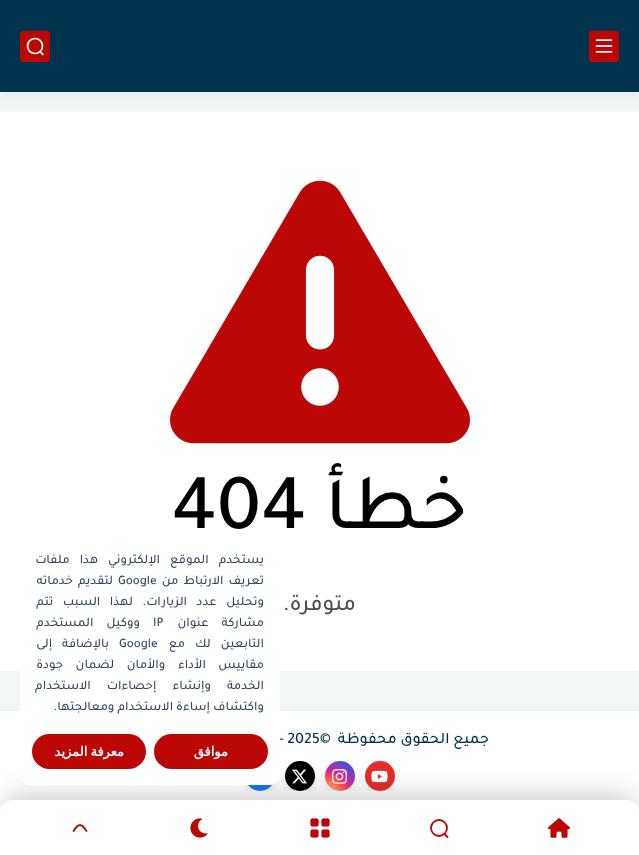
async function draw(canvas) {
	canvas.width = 639;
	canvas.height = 855;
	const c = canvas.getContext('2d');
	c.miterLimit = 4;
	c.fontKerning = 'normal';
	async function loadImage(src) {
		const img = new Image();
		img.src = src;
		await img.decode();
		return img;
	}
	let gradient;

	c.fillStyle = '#f3f6f7';
	c.fillRect(0, 0, 639, 855);
	c.fillStyle = '#fff';
	c.fillRect(0, 112, 639, 559);
	c.fillStyle = '#09204c0d';
	c.filter = 'blur(7px)';
	c.beginPath();
	c.rect(0, 6, 639, 92);
	c.fill();
	c.filter = 'none';
	c.fillStyle = '#01334e';
	c.fillRect(0, 0, 639, 92);
	c.fillStyle = '#bc0707';
	c.beginPath();
	c.roundRect(589, 31, 30, 31, 3);
	c.fill();
	c.drawImage(await loadImage('img1.png'), 595, 39, 18, 14);
	c.beginPath();
	c.roundRect(20, 31, 30, 31, 3);
	c.fill();
	c.beginPath();
	c.arc(35, 46, 7.5, 0, 2 * Math.PI);
	c.strokeStyle = '#fff';
	c.lineWidth = 1.7;
	c.stroke();
	c.beginPath();
	c.moveTo(40, 51.5);
	c.lineTo(43, 54.5);
	c.lineCap = 'round';
	c.lineJoin = 'round';
	c.stroke();
	c.drawImage(await loadImage('img2.png'), 170, 180, 300, 264);
	c.direction = 'rtl';
	c.font = '500 80px Tajawal';
	c.fillStyle = '#000';
	c.fillText('خطأ', 467, 528);
	c.direction = 'ltr';
	c.fillText('404', 172, 528);
	c.direction = 'rtl';
	c.font = '500 23px Tajawal';
	c.fillStyle = '#4e4e4e';
	c.fillText('متوفرة.', 356, 610);
	c.fillStyle = '#fff';
	c.fillRect(0, 711, 639, 100);
	c.font = '500 16px Tajawal';
	c.fillStyle = '#01334e';
	c.fillText('جميع الحقوق محفوظة', 489, 743);
	c.direction = 'ltr';
	c.fillText('- 2025©', 279, 743);
	c.save();
	c.beginPath();
	c.rect(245, 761, 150, 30);
	c.clip();
	c.fillStyle = '#0000001a';
	c.filter = 'blur(5px)';
	c.beginPath();
	c.roundRect(365, 764, 30, 30, 15);
	c.fill();
	c.filter = 'none';
	c.restore();
	c.fillStyle = '#e52d27';
	c.beginPath();
	c.arc(380, 776, 15, 0, 2 * Math.PI);
	c.fill();
	c.drawImage(await loadImage('img3.png'), 371, 770, 17, 13);
	c.save();
	c.beginPath();
	c.rect(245, 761, 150, 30);
	c.clip();
	c.fillStyle = '#0000001a';
	c.filter = 'blur(5px)';
	c.beginPath();
	c.roundRect(325, 764, 30, 30, 15);
	c.fill();
	c.filter = 'none';
	c.restore();
	gradient = c.createRadialGradient(325, 800, 0, 325, 800, 49);
	gradient.addColorStop(0, '#fdf497');
	gradient.addColorStop(0.05, '#fdf497');
	gradient.addColorStop(0.45, '#fd5949');
	gradient.addColorStop(0.6, '#d6249f');
	gradient.addColorStop(0.9, '#285aeb');
	c.fillStyle = gradient;
	c.beginPath();
	c.arc(340, 776, 15, 0, 2 * Math.PI);
	c.fill();
	c.drawImage(await loadImage('img4.png'), 332, 769, 15, 15);
	c.save();
	c.beginPath();
	c.rect(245, 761, 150, 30);
	c.clip();
	c.fillStyle = '#0000001a';
	c.filter = 'blur(5px)';
	c.beginPath();
	c.roundRect(285, 764, 30, 30, 15);
	c.fill();
	c.filter = 'none';
	c.restore();
	c.fillStyle = '#000';
	c.beginPath();
	c.arc(300, 776, 15, 0, 2 * Math.PI);
	c.fill();
	c.drawImage(await loadImage('img5.png'), 292, 769, 15, 15);
	c.save();
	c.beginPath();
	c.rect(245, 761, 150, 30);
	c.clip();
	c.fillStyle = '#0000001a';
	c.filter = 'blur(5px)';
	c.beginPath();
	c.roundRect(245, 764, 30, 30, 15);
	c.fill();
	c.filter = 'none';
	c.restore();
	c.fillStyle = '#1778f2';
	c.beginPath();
	c.arc(260, 776, 15, 0, 2 * Math.PI);
	c.fill();
	c.fillStyle = '#00000033';
	c.filter = 'blur(12.5px)';
	c.beginPath();
	c.roundRect(5, 795, 629, 45, 7);
	c.fill();
	c.filter = 'none';
	c.fillStyle = '#fff';
	c.beginPath();
	c.roundRect(20.5, 535.5, 259, 249, 9.5);
	c.fill();
	c.lineWidth = 1;
	c.lineJoin = 'miter';
	c.stroke();
	c.wordSpacing = '7px';
	c.direction = 'rtl';
	c.font = '500 13px Tajawal';
	c.fillStyle = '#34495e';
	c.fillText('يستخدم الموقع الإلكتروني هذا ملفات', 264, 563);
	c.wordSpacing = '2px';
	c.fillText('تعريف الارتباط من', 264, 584);
	c.wordSpacing = '0px';
	c.direction = 'ltr';
	c.fillText('Google', 118, 584);
	c.wordSpacing = '2px';
	c.direction = 'rtl';
	c.fillText('لتقديم خدماته', 113, 584);
	c.wordSpacing = '6.5px';
	c.fillText('وتحليل عدد الزيارات. لهذا السبب تتم', 264, 605);
	c.wordSpacing = '10px';
	c.fillText('مشاركة عنوان', 264, 626);
	c.wordSpacing = '0px';
	c.direction = 'ltr';
	c.fillText('IP', 153, 626);
	c.wordSpacing = '10px';
	c.direction = 'rtl';
	c.fillText('ووكيل المستخدم', 140, 626);
	c.wordSpacing = '7px';
	c.fillText('التابعين لك مع', 264, 647);
	c.wordSpacing = '0px';
	c.direction = 'ltr';
	c.fillText('Google', 119, 647);
	c.wordSpacing = '7px';
	c.direction = 'rtl';
	c.fillText('بالإضافة إلى', 109, 647);
	c.wordSpacing = '9.5px';
	c.fillText('مقاييس الأداء والأمان لضمان جودة', 264, 668);
	c.wordSpacing = '13px';
	c.fillText('الخدمة وإنشاء إحصاءات الاستخدام', 264, 689);
	c.wordSpacing = '0px';
	c.fillText('واكتشاف إساءة الاستخدام ومعالجتها.', 264, 710);
	c.fillStyle = '#bc0707';
	c.beginPath();
	c.roundRect(154, 734, 114, 35, 17.5);
	c.fill();
	c.font = 'bold 13px DejaVu Sans';
	c.fillStyle = '#fff';
	c.fillText('موافق', 228, 756);
	c.fillStyle = '#bc0707';
	c.beginPath();
	c.roundRect(32, 734, 114, 35, 17.5);
	c.fill();
	c.wordSpacing = '-1px';
	c.fillStyle = '#fff';
	c.fillText('معرفة المزيد', 124, 756);
	c.beginPath();
	c.roundRect(0, 800, 639, 55, [12, 12, 0, 0]);
	c.fill();
	c.drawImage(await loadImage('img6.png'), 548, 818, 22, 20);
	c.beginPath();
	c.arc(439, 828, 8, 0, 2 * Math.PI);
	c.strokeStyle = '#bc0707';
	c.lineWidth = 1.8;
	c.stroke();
	c.beginPath();
	c.moveTo(444.5, 834);
	c.lineTo(447.5, 837);
	c.lineJoin = 'round';
	c.stroke();
	c.drawImage(await loadImage('img7.png'), 310, 818, 20, 20);
	c.drawImage(await loadImage('img8.png'), 190, 818, 18, 20);
	c.beginPath();
	c.moveTo(73.5, 831);
	c.bezierCurveTo(78.5, 823, 81.5, 823, 86.5, 831);
	c.stroke();
}

draw(document.querySelector('canvas'));
